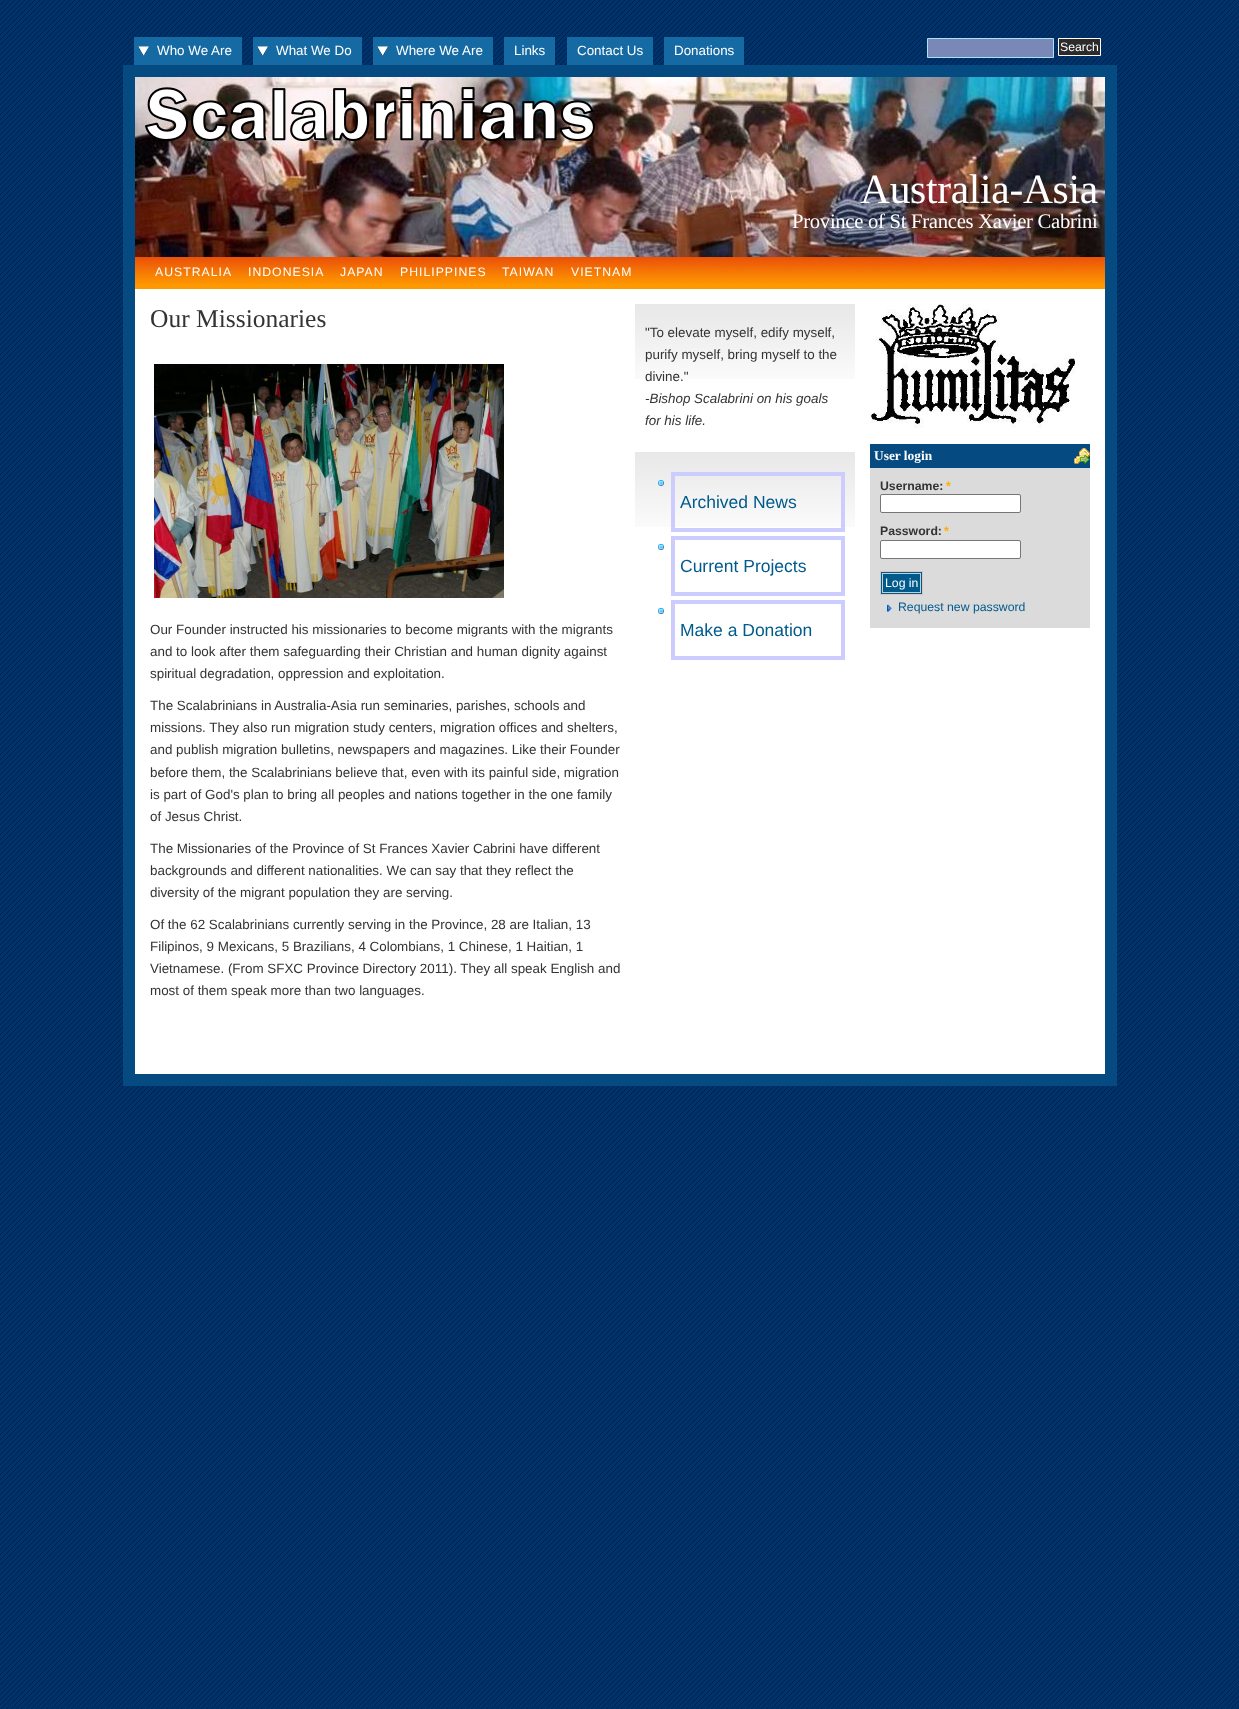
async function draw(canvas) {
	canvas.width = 1239;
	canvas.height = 1709;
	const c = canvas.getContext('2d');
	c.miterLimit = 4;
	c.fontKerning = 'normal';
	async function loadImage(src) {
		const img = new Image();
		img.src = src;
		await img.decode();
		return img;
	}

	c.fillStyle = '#fff';
	c.fillRect(0, 0, 1239, 1709);
	c.drawImage(await loadImage('img1.png'), 0, 0, 1239, 1709);
	c.fillStyle = '#156aa3';
	c.fillRect(134, 37, 108, 28);
	c.drawImage(await loadImage('img2.png'), 138, 46, 11, 10);
	c.font = '13.4px Liberation Sans';
	c.fillStyle = '#fff';
	c.fillText('Who We Are', 157, 55);
	c.fillStyle = '#156aa3';
	c.fillRect(253, 37, 109, 28);
	c.drawImage(await loadImage('img2.png'), 257, 46, 11, 10);
	c.fillStyle = '#fff';
	c.fillText('What We Do', 276, 55);
	c.fillStyle = '#156aa3';
	c.fillRect(373, 37, 120, 28);
	c.drawImage(await loadImage('img2.png'), 377, 46, 11, 10);
	c.fillStyle = '#fff';
	c.fillText('Where We Are', 396, 55);
	c.fillStyle = '#156aa3';
	c.fillRect(504, 37, 51, 28);
	c.fillStyle = '#fff';
	c.fillText('Links', 514, 55);
	c.fillStyle = '#156aa3';
	c.fillRect(567, 37, 86, 28);
	c.fillStyle = '#fff';
	c.fillText('Contact Us', 577, 55);
	c.fillStyle = '#156aa3';
	c.fillRect(664, 37, 80, 28);
	c.fillStyle = '#fff';
	c.fillText('Donations', 674, 55);
	c.fillStyle = '#7988b7';
	c.beginPath();
	c.rect(927.5, 38.5, 126, 19);
	c.fill();
	c.strokeStyle = '#ade1fa';
	c.stroke();
	c.fillStyle = '#2b2b2b';
	c.beginPath();
	c.rect(1058.5, 38.5, 42, 17);
	c.fill();
	c.strokeStyle = '#fff';
	c.stroke();
	c.font = '12.25px Liberation Sans';
	c.fillStyle = '#fff';
	c.fillText('Search', 1060, 51);
	c.fillRect(135, 289, 970, 785);
	c.strokeStyle = '#054b81';
	c.lineWidth = 12;
	c.strokeRect(129, 71, 982, 1009);
	c.drawImage(await loadImage('img3.png'), 135, 77, 970, 180);
	c.drawImage(await loadImage('img4.png'), 145, 87, 450, 54);
	c.letterSpacing = '-0.3px';
	c.font = '41.5px Liberation Serif';
	c.fillText('Australia-Asia', 860, 203);
	c.font = '20.7px Liberation Serif';
	c.fillText('Province of St Frances Xavier Cabrini', 792, 228);
	c.fillStyle = '#f90';
	c.fillRect(135, 284, 970, 5);
	c.drawImage(await loadImage('img5.png'), 135, 257, 970, 27);
	c.letterSpacing = '1px';
	c.font = '12.25px Liberation Sans';
	c.fillStyle = '#fff';
	for (const [text, x, y] of [
		['AUSTRALIA', 155, 276],
		['INDONESIA', 248, 276],
		['JAPAN', 340, 276],
		['PHILIPPINES', 400, 276],
		['TAIWAN', 502, 276],
		['VIETNAM', 571, 276],
	]) {
		c.fillText(text, x, y);
	}
	c.letterSpacing = '0px';
	c.font = '25.5px Liberation Serif';
	c.fillStyle = '#333';
	c.fillText('Our Missionaries', 150, 327);
	c.drawImage(await loadImage('img6.png'), 154, 364, 350, 234);
	c.font = '13.4px Liberation Sans';
	for (const [text, x, y] of [
		['Our Founder instructed his missionaries to become migrants with the migrants', 150, 634],
		['and to look after them safeguarding their Christian and human dignity against', 150, 656],
		['spiritual degradation, oppression and exploitation.', 150, 678],
		['The Scalabrinians in Australia-Asia run seminaries, parishes, schools and', 150, 710],
		['missions. They also run migration study centers, migration offices and shelters,', 150, 732],
		['and publish migration bulletins, newspapers and magazines. Like their Founder', 150, 754],
		['before them, the Scalabrinians believe that, even with its painful side, migration', 150, 777],
		['is part of God\'s plan to bring all peoples and nations together in the one family', 150, 799],
		['of Jesus Christ.', 150, 821],
		['The Missionaries of the Province of St Frances Xavier Cabrini have different', 150, 853],
		['backgrounds and different nationalities. We can say that they reflect the', 150, 875],
		['diversity of the migrant population they are serving.', 150, 897],
		['Of the 62 Scalabrinians currently serving in the Province, 28 are Italian, 13', 150, 929],
		['Filipinos, 9 Mexicans, 5 Brazilians, 4 Colombians, 1 Chinese, 1 Haitian, 1', 150, 951],
		['Vietnamese. (From SFXC Province Directory 2011). They all speak English and', 150, 973],
		['most of them speak more than two languages.', 150, 995],
	]) {
		c.fillText(text, x, y);
	}
	c.drawImage(await loadImage('img7.png'), 635, 304, 220, 75);
	for (const [text, x, y] of [
		['"To elevate myself, edify myself,', 645, 337],
		['purify myself, bring myself to the', 645, 359],
		['divine."', 645, 381],
	]) {
		c.fillText(text, x, y);
	}
	c.font = 'italic 13.4px Liberation Sans';
	c.fillText('-Bishop Scalabrini on his goals', 645, 403);
	c.fillText('for his life.', 645, 425);
	c.drawImage(await loadImage('img7.png'), 635, 452, 220, 75);
	c.drawImage(await loadImage('img8.png'), 658, 480, 6, 6);
	c.strokeStyle = '#ccf';
	c.lineWidth = 4;
	c.strokeRect(673, 474, 170, 56);
	c.font = '17.5px Liberation Sans';
	c.fillStyle = '#005a8c';
	c.fillText('Archived News', 680, 508);
	c.drawImage(await loadImage('img8.png'), 658, 544, 6, 6);
	c.strokeRect(673, 538, 170, 56);
	c.fillText('Current Projects', 680, 572);
	c.drawImage(await loadImage('img8.png'), 658, 608, 6, 6);
	c.strokeRect(673, 602, 170, 56);
	c.fillText('Make a Donation', 680, 636);
	c.drawImage(await loadImage('img9.png'), 870, 304, 205, 124);
	c.fillStyle = '#dbdbdb';
	c.fillRect(870, 468, 220, 160);
	c.fillStyle = '#054b81';
	c.fillRect(870, 444, 220, 24);
	c.drawImage(await loadImage('img10.png'), 1074, 448, 16, 16);
	c.font = 'bold 13.4px Liberation Serif';
	c.fillStyle = '#fff';
	c.fillText('User login', 874, 460);
	c.font = 'bold 12.25px Liberation Sans';
	c.fillStyle = '#333';
	c.fillText('Username:', 880, 490);
	c.fillStyle = '#ffae00';
	c.fillText('*', 946, 490);
	c.fillStyle = '#fff';
	c.beginPath();
	c.roundRect(880.5, 494.5, 140, 18, 1.5);
	c.fill();
	c.strokeStyle = '#767676';
	c.lineWidth = 1;
	c.stroke();
	c.fillStyle = '#333';
	c.fillText('Password:', 880, 535);
	c.fillStyle = '#ffae00';
	c.fillText('*', 944, 535);
	c.fillStyle = '#fff';
	c.beginPath();
	c.roundRect(880.5, 540.5, 140, 18, 1.5);
	c.fill();
	c.stroke();
	c.fillStyle = '#005a8c';
	c.beginPath();
	c.rect(880.5, 571.5, 42, 23);
	c.fill();
	c.strokeStyle = '#ccc';
	c.stroke();
	c.strokeRect(882.5, 573.5, 38, 19);
	c.font = '12.25px Liberation Sans';
	c.fillStyle = '#fff';
	c.fillText('Log in', 885, 587);
	c.drawImage(await loadImage('img11.png'), 887, 604, 5, 8);
	c.fillStyle = '#005a8c';
	c.fillText('Request new password', 898, 611);
}

draw(document.querySelector('canvas'));
